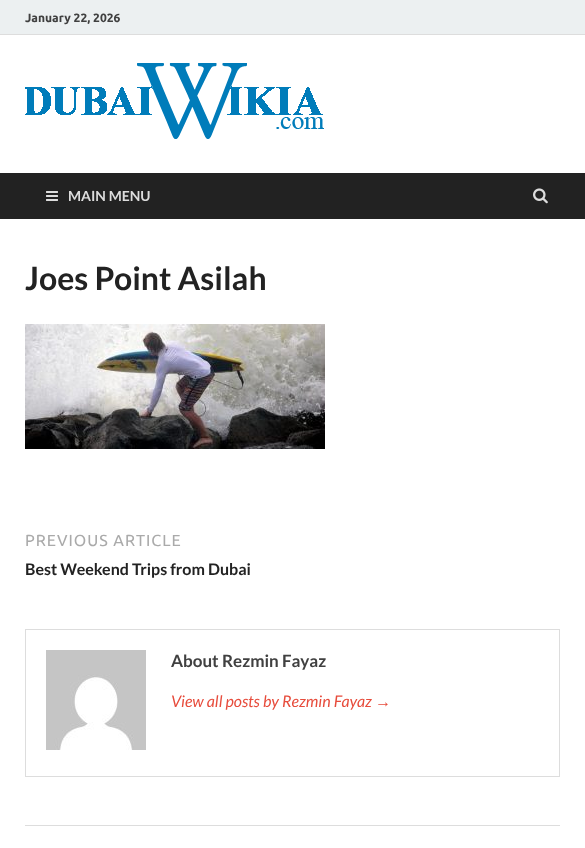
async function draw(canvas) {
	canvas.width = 585;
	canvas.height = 848;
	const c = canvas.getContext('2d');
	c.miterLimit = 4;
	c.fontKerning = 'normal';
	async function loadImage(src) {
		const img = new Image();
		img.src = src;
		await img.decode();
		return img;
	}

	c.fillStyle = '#fff';
	c.fillRect(0, 0, 585, 848);
	c.fillStyle = '#ecf0f1';
	c.fillRect(0, 0, 585, 34);
	c.fillStyle = '#ddd';
	c.fillRect(0, 34, 585, 1);
	c.font = 'bold 12px Ubuntu';
	c.fillStyle = '#404040';
	c.fillText('January 22, 2026', 25, 22);
	c.drawImage(await loadImage('img1.png'), 25, 63, 299, 76);
	c.fillStyle = '#222';
	c.fillRect(0, 173, 585, 46);
	c.drawImage(await loadImage('img2.png'), 46, 191, 12, 10);
	c.font = 'bold 14px Lato';
	c.fillStyle = '#ddd';
	c.fillText('MAIN MENU', 68, 201);
	c.drawImage(await loadImage('img3.png'), 533, 188, 15, 16);
	c.font = 'bold 32px Lato';
	c.fillStyle = '#222';
	c.fillText('Joes Point Asilah', 25, 290);
	c.drawImage(await loadImage('img4.png'), 25, 324, 300, 125);
	c.letterSpacing = '1px';
	c.font = '16px Ubuntu';
	c.fillStyle = '#aaa';
	c.fillText('PREVIOUS ARTICLE', 25, 546);
	c.letterSpacing = '0px';
	c.font = 'bold 16px Lato';
	c.fillStyle = '#222';
	c.fillText('Best Weekend Trips from Dubai', 25, 575);
	c.strokeStyle = '#ddd';
	c.strokeRect(25.5, 629.5, 534, 147);
	c.drawImage(await loadImage('img5.png'), 46, 650, 100, 100);
	c.font = 'bold 17px Lato';
	c.fillStyle = '#404040';
	c.fillText('About Rezmin Fayaz', 171, 667);
	c.font = 'italic 16px Lato';
	c.fillStyle = '#e74c3c';
	c.fillText('View all posts by Rezmin Fayaz', 171, 707);
	c.font = 'italic 16px Liberation Sans';
	c.fillText('→', 375, 707);
	c.fillStyle = '#ddd';
	c.fillRect(25, 825, 535, 1);
}

draw(document.querySelector('canvas'));
